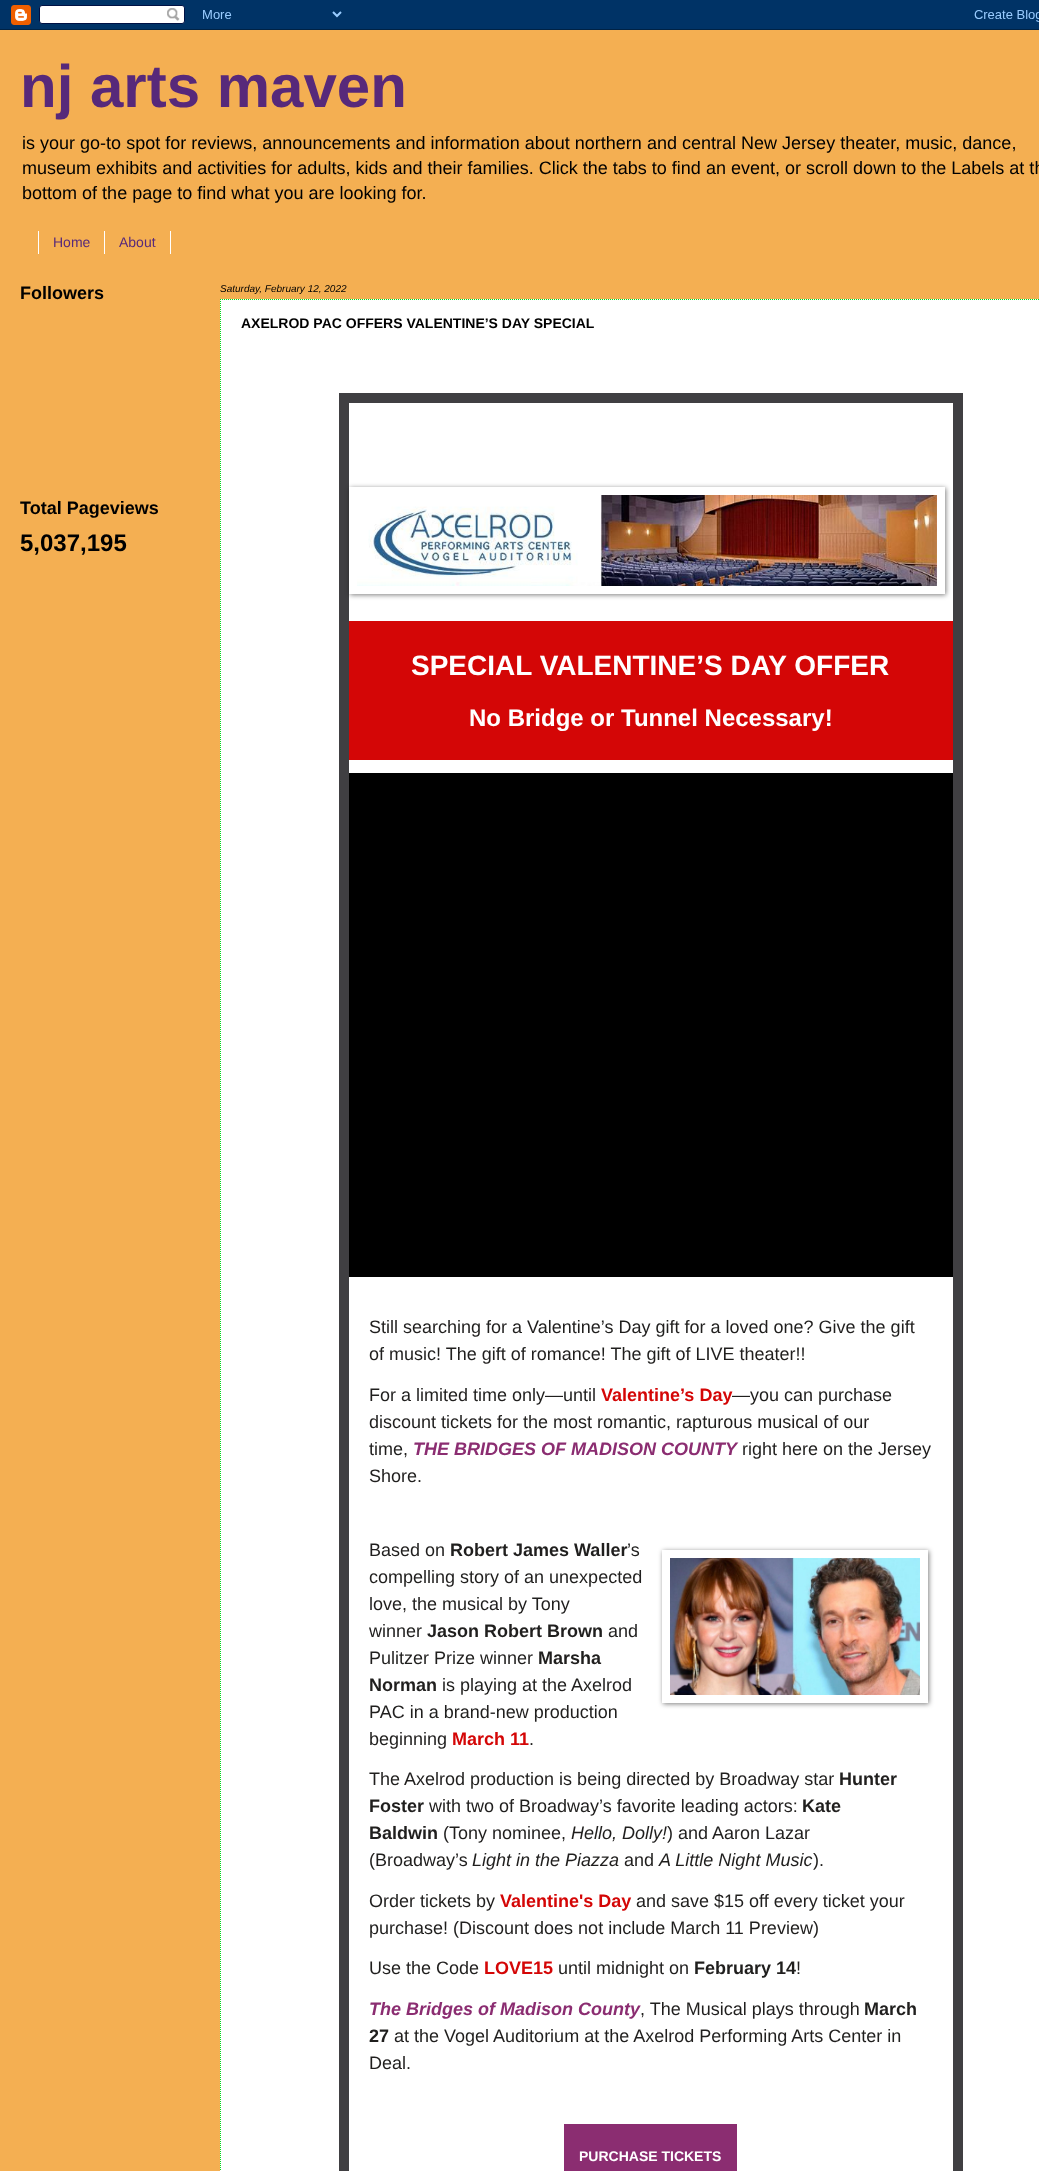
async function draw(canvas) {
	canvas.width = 1039;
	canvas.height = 2171;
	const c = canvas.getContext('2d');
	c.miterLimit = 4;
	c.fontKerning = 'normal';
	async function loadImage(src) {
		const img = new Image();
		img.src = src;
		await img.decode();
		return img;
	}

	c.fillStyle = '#f4af52';
	c.fillRect(0, 0, 1039, 2171);
	c.drawImage(await loadImage('img1.png'), 0, 0, 1039, 30);
	c.font = 'bold 60px Liberation Sans';
	c.fillStyle = '#57297a';
	c.fillText('nj arts maven', 20, 107);
	c.font = '18.03px Liberation Sans';
	c.fillStyle = '#000';
	for (const [text, x, y] of [
		['is your go-to spot for reviews, announcements and information about northern and central New Jersey theater, music, dance,', 22, 149],
		['museum exhibits and activities for adults, kids and their families. Click the tabs to find an event, or scroll down to the Labels at th', 22, 174],
		['bottom of the page to find what you are looking for.', 22, 199],
	]) {
		c.fillText(text, x, y);
	}
	c.fillStyle = '#fff';
	c.fillRect(104, 231, 1, 23);
	c.fillRect(38, 231, 1, 23);
	c.font = '14px Liberation Sans';
	c.fillStyle = '#57297a';
	c.fillText('Home', 53, 247);
	c.fillStyle = '#fff';
	c.fillRect(170, 231, 1, 23);
	c.fillStyle = '#57297a';
	c.fillText('About', 119, 247);
	c.font = 'bold 18px Liberation Sans';
	c.fillStyle = '#000';
	c.fillText('Followers', 20, 299);
	c.fillText('Total Pageviews', 20, 514);
	c.font = 'bold 24px Liberation Sans';
	c.fillText('5,037,195', 20, 551);
	c.font = 'italic 10px Liberation Sans';
	c.fillText('Saturday, February 12, 2022', 220, 292);
	c.fillStyle = '#fff';
	c.fillRect(220, 299, 819, 1872);
	c.beginPath();
	c.moveTo(220, 299.5);
	c.lineTo(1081, 299.5);
	c.strokeStyle = '#00d818';
	c.setLineDash([1, 1]);
	c.stroke();
	c.beginPath();
	c.moveTo(220.5, 299);
	c.lineTo(220.5, 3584);
	c.stroke();
	c.font = 'bold 14px Liberation Sans';
	c.fillStyle = '#000';
	c.fillText('AXELROD PAC OFFERS VALENTINE’S DAY SPECIAL', 241, 328);
	c.fillStyle = '#403f42';
	c.fillRect(339, 393, 624, 1778);
	c.fillStyle = '#fff';
	c.fillRect(349, 403, 604, 1768);
	c.save();
	c.beginPath();
	c.moveTo(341, 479);
	c.lineTo(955, 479);
	c.lineTo(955, 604);
	c.lineTo(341, 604);
	c.closePath();
	c.moveTo(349, 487);
	c.lineTo(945, 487);
	c.lineTo(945, 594);
	c.lineTo(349, 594);
	c.closePath();
	c.clip('evenodd');
	c.fillStyle = '#00000080';
	c.filter = 'blur(2.5px)';
	c.beginPath();
	c.rect(350, 488, 596, 107);
	c.fill();
	c.filter = 'none';
	c.restore();
	c.drawImage(await loadImage('img2.png'), 357, 495, 580, 91);
	c.fillStyle = '#d40606';
	c.fillRect(349, 621, 604, 139);
	c.font = 'bold 28px Liberation Sans';
	c.fillStyle = '#fff';
	c.fillText('SPECIAL VALENTINE’S DAY OFFER', 411, 675);
	c.font = 'bold 24px Liberation Sans';
	c.fillText('No Bridge or Tunnel Necessary!', 469, 726);
	c.fillStyle = '#000';
	c.fillRect(349, 773, 604, 504);
	c.font = '18px Liberation Sans';
	c.fillStyle = '#201f1e';
	for (const [text, x, y] of [
		['Still searching for a Valentine’s Day gift for a loved one? Give the gift', 369, 1333],
		['of music! The gift of romance! The gift of LIVE theater!!', 369, 1360],
		['For a limited time only—until', 369, 1401],
	]) {
		c.fillText(text, x, y);
	}
	c.font = 'bold 18px Liberation Sans';
	c.fillStyle = '#d40606';
	c.fillText('Valentine’s Day', 601, 1401);
	c.font = '18px Liberation Sans';
	c.fillStyle = '#201f1e';
	for (const [text, x, y] of [
		['—you can purchase', 732, 1401],
		['discount tickets for the most romantic, rapturous musical of our', 369, 1428],
		['time,', 369, 1455],
	]) {
		c.fillText(text, x, y);
	}
	c.font = 'italic bold 18px Liberation Sans';
	c.fillStyle = '#8b2d71';
	c.fillText('THE BRIDGES OF MADISON COUNTY', 413, 1455);
	c.font = '18px Liberation Sans';
	c.fillStyle = '#201f1e';
	for (const [text, x, y] of [
		['right here on the Jersey', 742, 1455],
		['Shore.', 369, 1482],
		['Based on', 369, 1556],
	]) {
		c.fillText(text, x, y);
	}
	c.font = 'bold 18px Liberation Sans';
	c.fillText('Robert James Waller', 450, 1556);
	c.font = '18px Liberation Sans';
	c.fillText('’s', 627, 1556);
	c.save();
	c.beginPath();
	c.moveTo(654, 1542);
	c.lineTo(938, 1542);
	c.lineTo(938, 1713);
	c.lineTo(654, 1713);
	c.closePath();
	c.moveTo(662, 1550);
	c.lineTo(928, 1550);
	c.lineTo(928, 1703);
	c.lineTo(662, 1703);
	c.closePath();
	c.clip('evenodd');
	c.fillStyle = '#00000080';
	c.filter = 'blur(2.5px)';
	c.beginPath();
	c.rect(663, 1551, 266, 153);
	c.fill();
	c.filter = 'none';
	c.restore();
	c.drawImage(await loadImage('img3.png'), 670, 1558, 250, 137);
	for (const [text, x, y] of [
		['compelling story of an unexpected', 369, 1583],
		['love, the musical by Tony', 369, 1610],
		['winner', 369, 1637],
	]) {
		c.fillText(text, x, y);
	}
	c.font = 'bold 18px Liberation Sans';
	c.fillText('Jason Robert Brown', 427, 1637);
	c.font = '18px Liberation Sans';
	c.fillText('and', 608, 1637);
	c.fillText('Pulitzer Prize winner', 369, 1664);
	c.font = 'bold 18px Liberation Sans';
	c.fillText('Marsha', 538, 1664);
	c.fillText('Norman', 369, 1691);
	c.font = '18px Liberation Sans';
	for (const [text, x, y] of [
		['is playing at the Axelrod', 442, 1691],
		['PAC in a brand-new production', 369, 1718],
		['beginning', 369, 1745],
	]) {
		c.fillText(text, x, y);
	}
	c.font = 'bold 18px Liberation Sans';
	c.fillStyle = '#d40606';
	c.fillText('March 11', 452, 1745);
	c.font = '18px Liberation Sans';
	c.fillStyle = '#201f1e';
	c.fillText('.', 529, 1745);
	c.fillText('The Axelrod production is being directed by Broadway star', 369, 1785);
	c.font = 'bold 18px Liberation Sans';
	c.fillText('Hunter', 839, 1785);
	c.fillText('Foster', 369, 1812);
	c.font = '18px Liberation Sans';
	c.fillText('with two of Broadway’s favorite leading actors:', 429, 1812);
	c.font = 'bold 18px Liberation Sans';
	c.fillText('Kate', 802, 1812);
	c.fillText('Baldwin', 369, 1839);
	c.font = '18px Liberation Sans';
	c.fillText('(Tony nominee,', 443, 1839);
	c.font = 'italic 18px Liberation Sans';
	c.fillText('Hello, Dolly!', 571, 1839);
	c.font = '18px Liberation Sans';
	c.fillText(') and Aaron Lazar', 667, 1839);
	c.fillText('(Broadway’s', 369, 1866);
	c.font = 'italic 18px Liberation Sans';
	c.fillText('Light in the Piazza', 472, 1866);
	c.font = '18px Liberation Sans';
	c.fillText('and', 624, 1866);
	c.font = 'italic 18px Liberation Sans';
	c.fillText('A Little Night Music', 659, 1866);
	c.font = '18px Liberation Sans';
	c.fillText(').', 813, 1866);
	c.fillText('Order tickets by', 369, 1907);
	c.font = 'bold 18px Liberation Sans';
	c.fillStyle = '#d40606';
	c.fillText('Valentine\'s Day', 500, 1907);
	c.font = '18px Liberation Sans';
	c.fillStyle = '#201f1e';
	for (const [text, x, y] of [
		['and save $15 off every ticket your', 636, 1907],
		['purchase! (Discount does not include March 11 Preview)', 369, 1934],
		['Use the Code', 369, 1974],
	]) {
		c.fillText(text, x, y);
	}
	c.font = 'bold 18px Liberation Sans';
	c.fillStyle = '#d40606';
	c.fillText('LOVE15', 484, 1974);
	c.font = '18px Liberation Sans';
	c.fillStyle = '#201f1e';
	c.fillText('until midnight on', 558, 1974);
	c.font = 'bold 18px Liberation Sans';
	c.fillText('February 14', 694, 1974);
	c.font = '18px Liberation Sans';
	c.fillText('!', 796, 1974);
	c.font = 'italic bold 18px Liberation Sans';
	c.fillStyle = '#8b2d71';
	c.fillText('The Bridges of Madison County', 369, 2015);
	c.font = '18px Liberation Sans';
	c.fillStyle = '#201f1e';
	c.fillText(', The Musical plays through', 640, 2015);
	c.font = 'bold 18px Liberation Sans';
	c.fillText('March', 864, 2015);
	c.fillText('27', 369, 2042);
	c.font = '18px Liberation Sans';
	c.fillText('at the Vogel Auditorium at the Axelrod Performing Arts Center in', 394, 2042);
	c.fillText('Deal.', 369, 2069);
	c.fillStyle = '#8b2d71';
	c.fillRect(564, 2124, 173, 47);
	c.font = 'bold 14px Liberation Sans';
	c.fillStyle = '#fff';
	c.fillText('PURCHASE TICKETS', 579, 2161);
}

draw(document.querySelector('canvas'));
